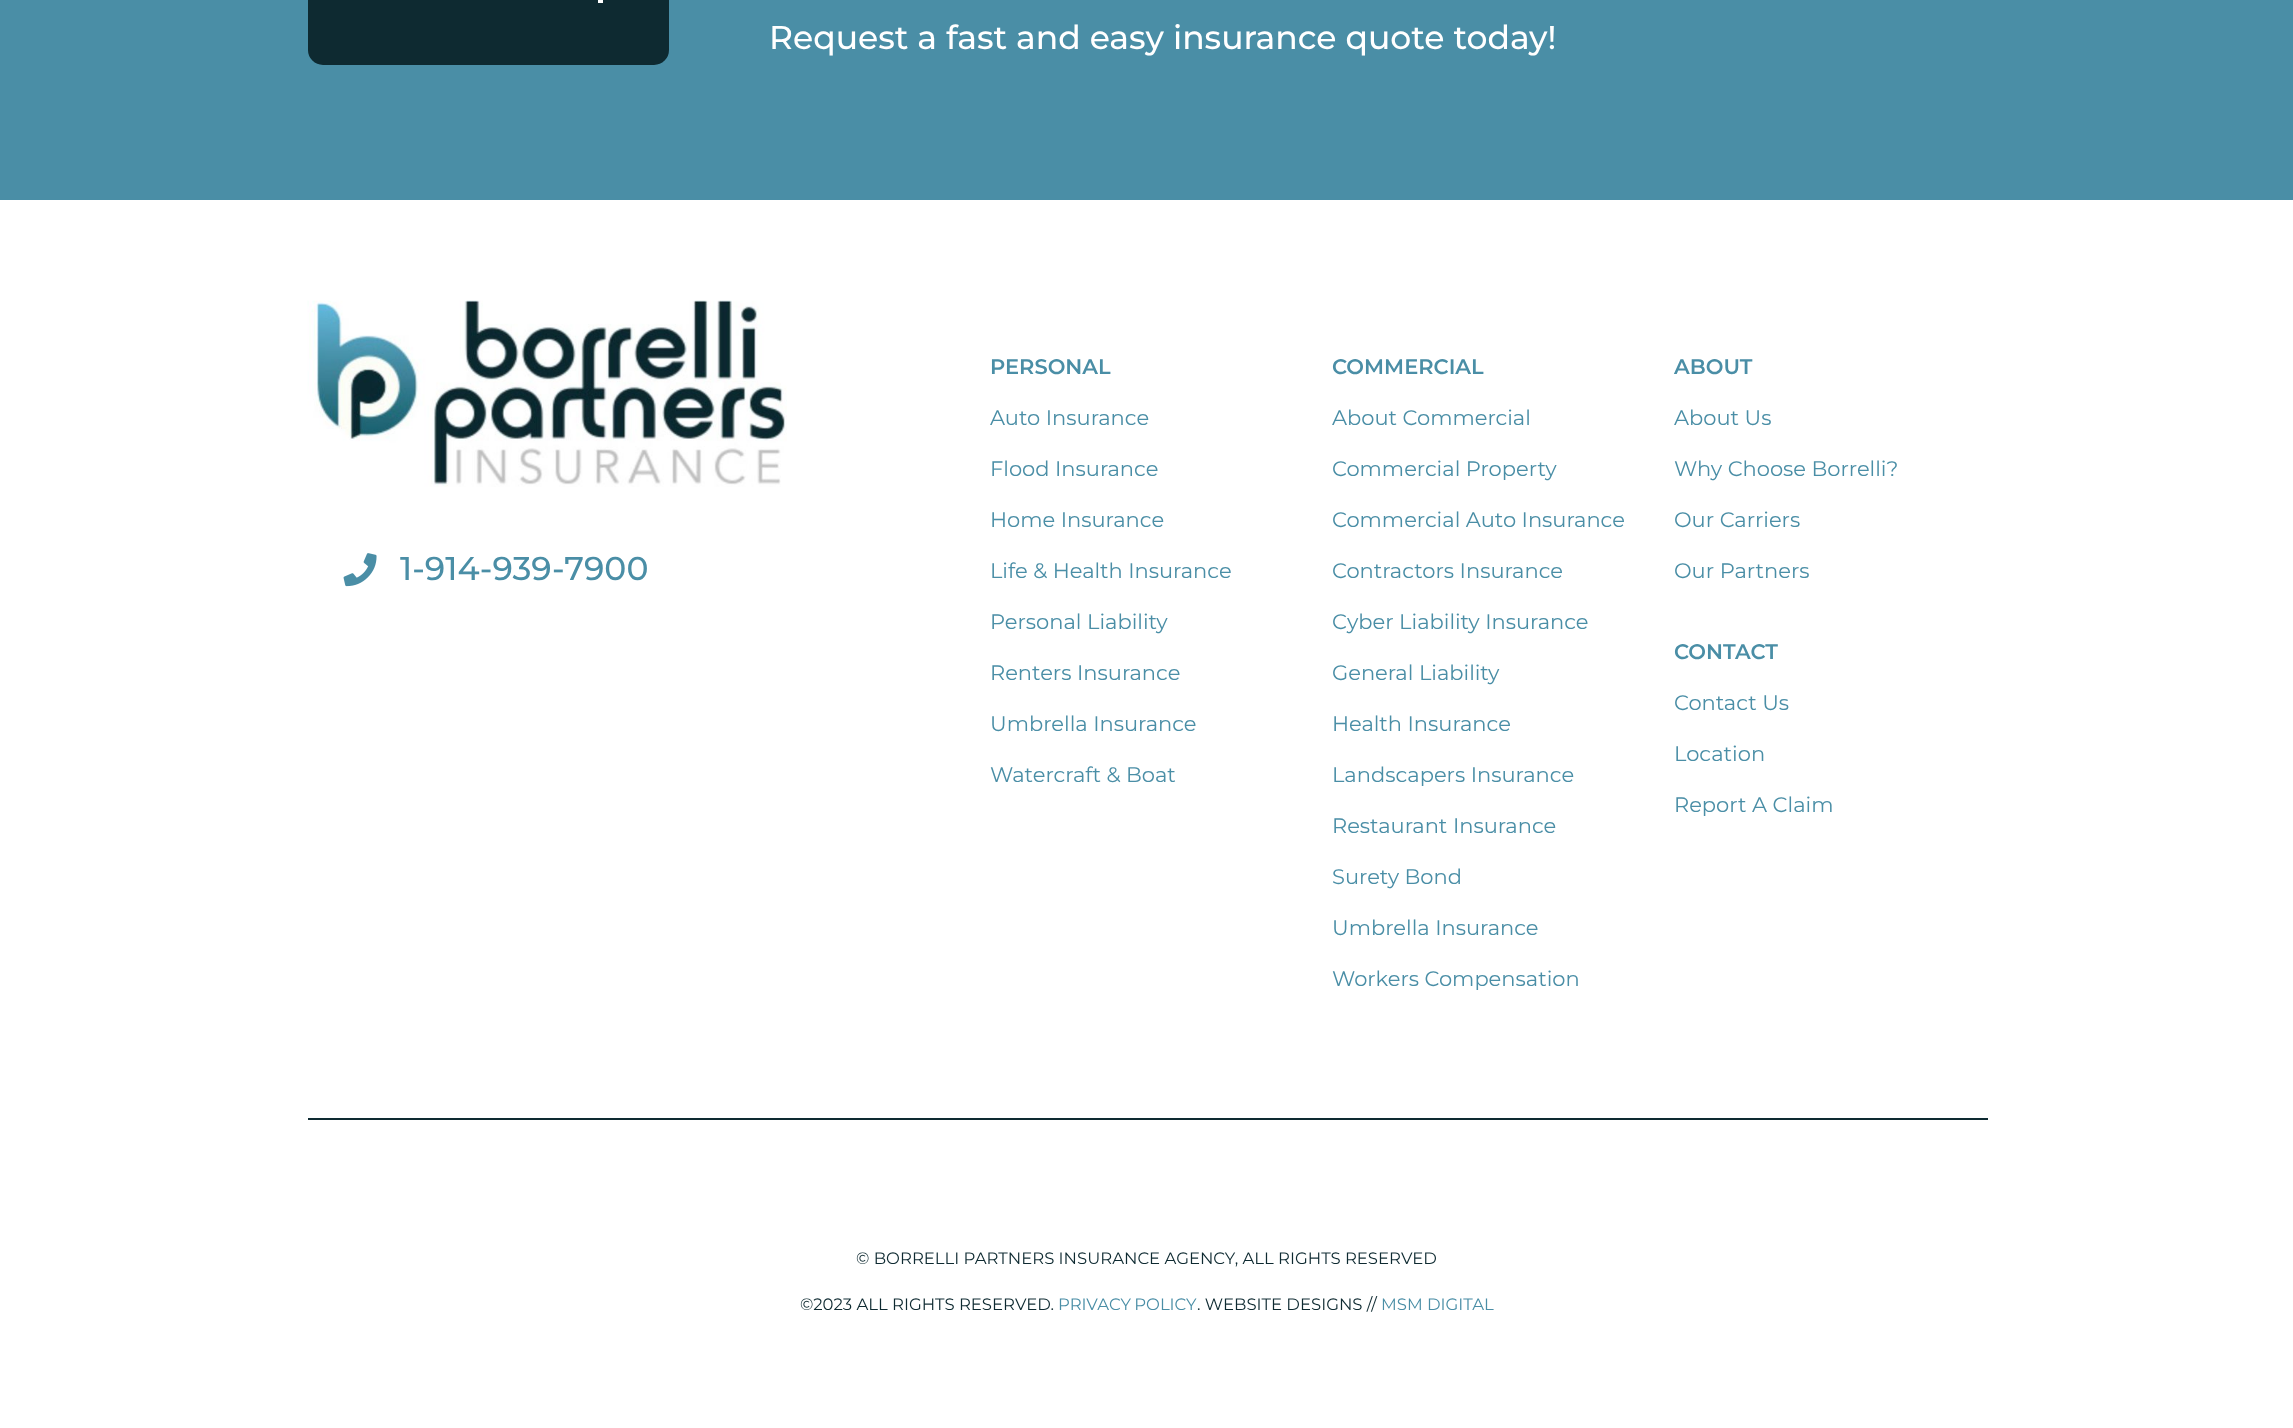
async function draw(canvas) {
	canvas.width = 2293;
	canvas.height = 1428;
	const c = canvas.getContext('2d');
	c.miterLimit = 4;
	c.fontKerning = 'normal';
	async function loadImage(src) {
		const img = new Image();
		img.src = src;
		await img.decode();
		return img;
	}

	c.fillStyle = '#fff';
	c.fillRect(0, 0, 2293, 1428);
	c.fillStyle = '#4a8ea6';
	c.fillRect(0, 0, 2293, 200);
	c.fillStyle = '#0e2a31';
	c.beginPath();
	c.roundRect(308, -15, 361, 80, 15);
	c.fill();
	c.fillStyle = '#fff';
	c.fillRect(598, 0, 5, 3);
	c.font = '500 33px Montserrat';
	c.fillText('Request a fast and easy insurance quote today!', 769, 49);
	c.drawImage(await loadImage('img1.png'), 307, 300, 480, 187);
	c.drawImage(await loadImage('img2.png'), 343, 553, 34, 34);
	c.fillStyle = '#4a8ea6';
	c.fillText('1-914-939-7900', 400, 580);
	c.font = '600 21px Montserrat';
	c.fillText('PERSONAL', 990, 374);
	c.font = '21px Montserrat';
	for (const [text, x, y] of [
		['Auto Insurance', 990, 425],
		['Flood Insurance', 990, 476],
		['Home Insurance', 990, 527],
		['Life & Health Insurance', 990, 578],
		['Personal Liability', 990, 629],
		['Renters Insurance', 990, 680],
		['Umbrella Insurance', 990, 731],
		['Watercraft & Boat', 990, 782],
	]) {
		c.fillText(text, x, y);
	}
	c.font = '600 21px Montserrat';
	c.fillText('COMMERCIAL', 1332, 374);
	c.font = '21px Montserrat';
	for (const [text, x, y] of [
		['About Commercial', 1332, 425],
		['Commercial Property', 1332, 476],
		['Commercial Auto Insurance', 1332, 527],
		['Contractors Insurance', 1332, 578],
		['Cyber Liability Insurance', 1332, 629],
		['General Liability', 1332, 680],
		['Health Insurance', 1332, 731],
		['Landscapers Insurance', 1332, 782],
		['Restaurant Insurance', 1332, 833],
		['Surety Bond', 1332, 884],
		['Umbrella Insurance', 1332, 935],
		['Workers Compensation', 1332, 986],
	]) {
		c.fillText(text, x, y);
	}
	c.font = '600 21px Montserrat';
	c.fillText('ABOUT', 1674, 374);
	c.font = '21px Montserrat';
	for (const [text, x, y] of [
		['About Us', 1674, 425],
		['Why Choose Borrelli?', 1674, 476],
		['Our Carriers', 1674, 527],
		['Our Partners', 1674, 578],
	]) {
		c.fillText(text, x, y);
	}
	c.font = '600 21px Montserrat';
	c.fillText('CONTACT', 1674, 659);
	c.font = '21px Montserrat';
	for (const [text, x, y] of [
		['Contact Us', 1674, 710],
		['Location', 1674, 761],
		['Report A Claim', 1674, 812],
	]) {
		c.fillText(text, x, y);
	}
	c.fillStyle = '#0e2a31';
	c.fillRect(308, 1118, 1680, 2);
	c.font = '16.5px Montserrat';
	c.fillText('© BORRELLI PARTNERS INSURANCE AGENCY, ALL RIGHTS RESERVED', 856, 1264);
	c.fillText('©2023 ALL RIGHTS RESERVED.', 800, 1310);
	c.wordSpacing = '-1px';
	c.fillStyle = '#4a8ea6';
	c.fillText('PRIVACY POLICY', 1058, 1310);
	c.wordSpacing = '0px';
	c.fillStyle = '#0e2a31';
	c.fillText('. WEBSITE DESIGNS //', 1197, 1310);
	c.fillStyle = '#4a8ea6';
	c.fillText('MSM DIGITAL', 1381, 1310);
}

draw(document.querySelector('canvas'));
